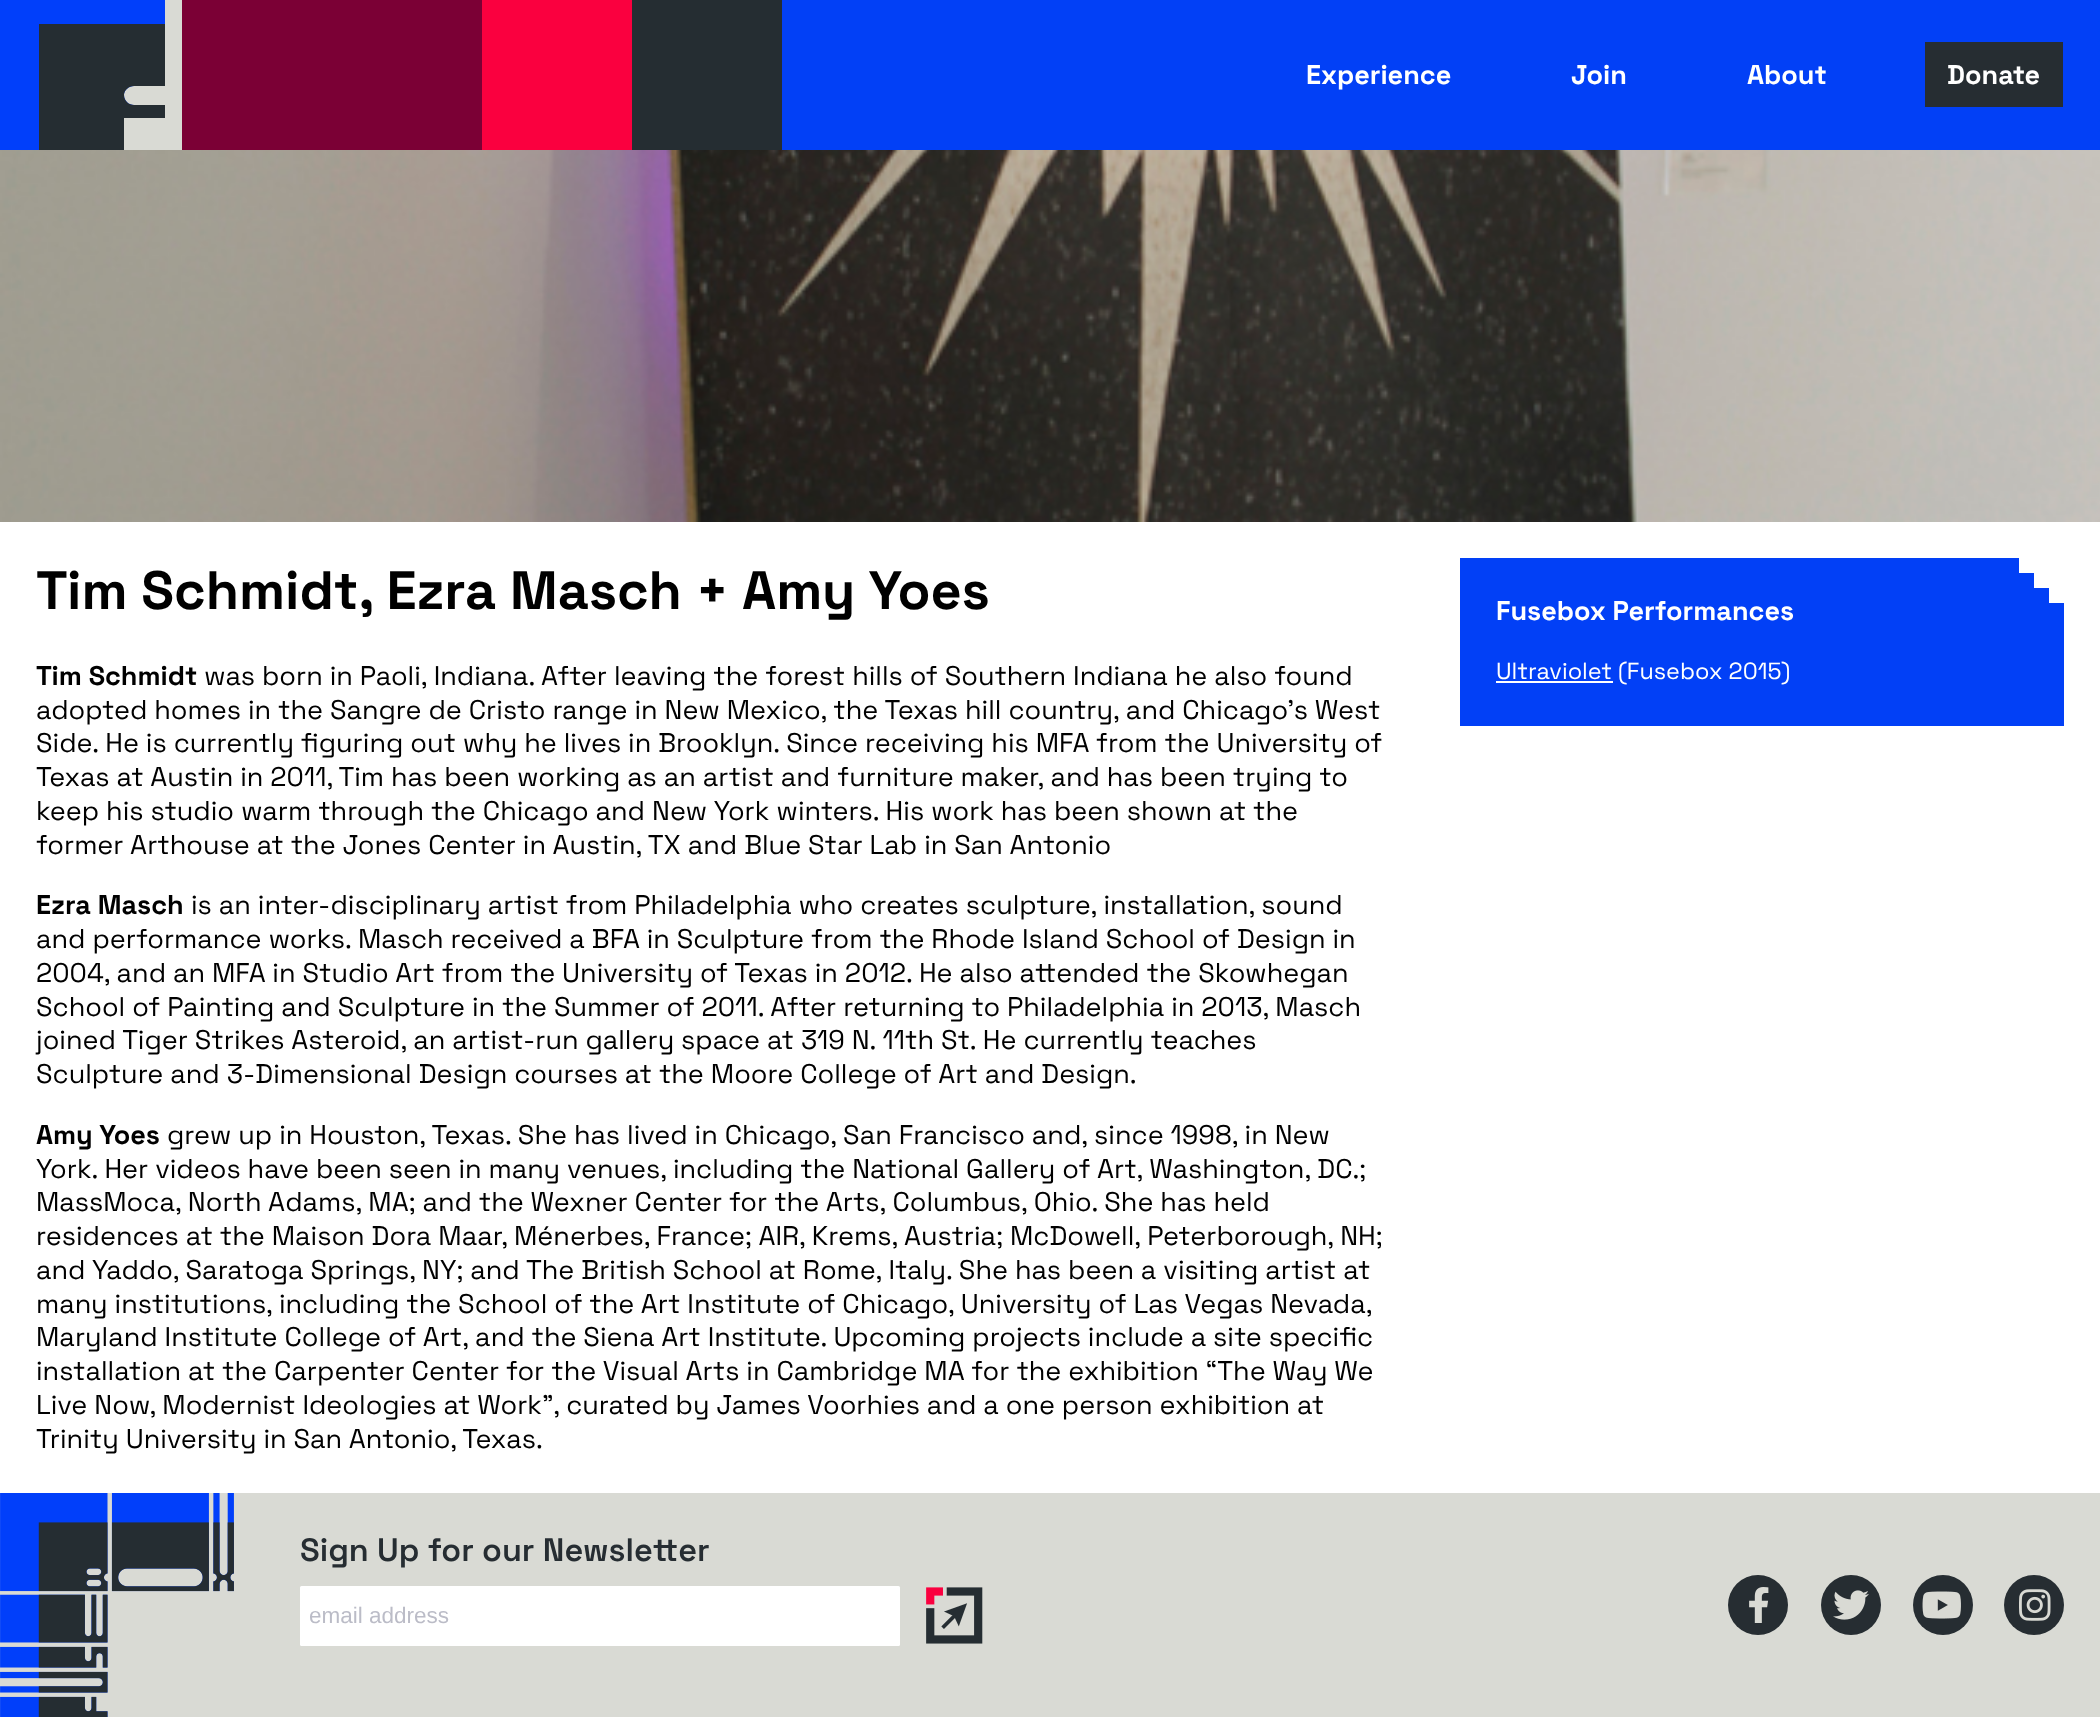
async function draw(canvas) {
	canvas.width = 2100;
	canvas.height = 1717;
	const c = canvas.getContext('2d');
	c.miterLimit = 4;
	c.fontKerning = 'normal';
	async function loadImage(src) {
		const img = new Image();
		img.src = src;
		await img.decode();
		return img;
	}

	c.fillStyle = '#fff';
	c.fillRect(0, 0, 2100, 1717);
	for (const [x, y, w, h, color] of [
		[632, 0, 150, 150, '#252d32'],
		[482, 0, 150, 150, '#fa003f'],
		[182, 0, 300, 150, '#7b0035'],
		[124, 0, 58, 150, '#d9dad4'],
	]) {
		c.fillStyle = color;
		c.fillRect(x, y, w, h);
	}
	c.fillStyle = '#013ffa';
	c.beginPath();
	c.moveTo(124, 118);
	c.lineTo(165, 118);
	c.lineTo(165, 105);
	c.lineTo(134, 105);
	c.bezierCurveTo(129, 105, 124, 101, 124, 95);
	c.bezierCurveTo(124, 90, 129, 86, 134, 86);
	c.lineTo(165, 86);
	c.lineTo(165, 0);
	c.lineTo(0, 0);
	c.lineTo(0, 150);
	c.lineTo(124, 150);
	c.closePath();
	c.fill();
	c.fillStyle = '#252d32';
	c.beginPath();
	c.moveTo(124, 118);
	c.lineTo(165, 118);
	c.lineTo(165, 105);
	c.lineTo(134, 105);
	c.bezierCurveTo(129, 105, 124, 101, 124, 95);
	c.bezierCurveTo(124, 90, 129, 86, 134, 86);
	c.lineTo(165, 86);
	c.lineTo(165, 24);
	c.lineTo(39, 24);
	c.lineTo(39, 150);
	c.lineTo(124, 150);
	c.closePath();
	c.fill();
	c.fillStyle = '#0240f6';
	c.fillRect(782, 0, 1318, 150);
	c.font = 'bold 27px Space Grotesk';
	c.fillStyle = '#fff';
	for (const [text, x, y] of [
		['Experience', 1306, 84],
		['Join', 1571, 84],
		['About', 1747, 84],
	]) {
		c.fillText(text, x, y);
	}
	c.fillStyle = '#262d32';
	c.fillRect(1925, 42, 138, 65);
	c.fillStyle = '#fff';
	c.fillText('Donate', 1947, 84);
	c.drawImage(await loadImage('img1.png'), 0, 150, 2100, 372);
	c.font = 'bold 54px Space Grotesk';
	c.fillStyle = '#000';
	c.fillText('Tim Schmidt, Ezra Masch + Amy Yoes', 36, 609);
	c.font = 'bold 27px Space Grotesk';
	c.fillText('Tim Schmidt', 36, 685);
	c.font = '27px Space Grotesk';
	for (const [text, x, y] of [
		['was born in Paoli, Indiana. After leaving the forest hills of Southern Indiana he also found', 204, 685],
		['adopted homes in the Sangre de Cristo range in New Mexico, the Texas hill country, and Chicago’s West', 36, 719],
		['Side. He is currently figuring out why he lives in Brooklyn. Since receiving his MFA from the University of', 36, 752],
		['Texas at Austin in 2011, Tim has been working as an artist and furniture maker, and has been trying to', 36, 786],
		['keep his studio warm through the Chicago and New York winters. His work has been shown at the', 36, 820],
		['former Arthouse at the Jones Center in Austin, TX and Blue Star Lab in San Antonio', 36, 854],
	]) {
		c.fillText(text, x, y);
	}
	c.font = 'bold 27px Space Grotesk';
	c.fillText('Ezra Masch', 36, 914);
	c.font = '27px Space Grotesk';
	for (const [text, x, y] of [
		['is an inter-disciplinary artist from Philadelphia who creates sculpture, installation, sound', 191, 914],
		['and performance works. Masch received a BFA in Sculpture from the Rhode Island School of Design in', 36, 948],
		['2004, and an MFA in Studio Art from the University of Texas in 2012. He also attended the Skowhegan', 36, 982],
		['School of Painting and Sculpture in the Summer of 2011. After returning to Philadelphia in 2013, Masch', 36, 1016],
		['joined Tiger Strikes Asteroid, an artist-run gallery space at 319 N. 11th St. He currently teaches', 36, 1049],
		['Sculpture and 3-Dimensional Design courses at the Moore College of Art and Design.', 36, 1083],
	]) {
		c.fillText(text, x, y);
	}
	c.font = 'bold 27px Space Grotesk';
	c.fillText('Amy Yoes', 36, 1144);
	c.font = '27px Space Grotesk';
	for (const [text, x, y] of [
		['grew up in Houston, Texas. She has lived in Chicago, San Francisco and, since 1998, in New', 167, 1144],
		['York. Her videos have been seen in many venues, including the National Gallery of Art, Washington, DC.;', 36, 1178],
		['MassMoca, North Adams, MA; and the Wexner Center for the Arts, Columbus, Ohio. She has held', 36, 1211],
		['residences at the Maison Dora Maar, Ménerbes, France; AIR, Krems, Austria; McDowell, Peterborough, NH;', 36, 1245],
		['and Yaddo, Saratoga Springs, NY; and The British School at Rome, Italy. She has been a visiting artist at', 36, 1279],
		['many institutions, including the School of the Art Institute of Chicago, University of Las Vegas Nevada,', 36, 1313],
		['Maryland Institute College of Art, and the Siena Art Institute. Upcoming projects include a site specific', 36, 1346],
		['installation at the Carpenter Center for the Visual Arts in Cambridge MA for the exhibition “The Way We', 36, 1380],
		['Live Now, Modernist Ideologies at Work”, curated by James Voorhies and a one person exhibition at', 36, 1414],
		['Trinity University in San Antonio, Texas.', 36, 1448],
	]) {
		c.fillText(text, x, y);
	}
	c.fillStyle = '#0240f6';
	c.fillRect(1460, 558, 604, 168);
	c.fillStyle = '#fff';
	c.beginPath();
	c.moveTo(2049, 558);
	c.lineTo(2019, 558);
	c.lineTo(2019, 573);
	c.lineTo(2034, 573);
	c.lineTo(2034, 588);
	c.lineTo(2049, 588);
	c.lineTo(2049, 603);
	c.lineTo(2064, 603);
	c.lineTo(2064, 558);
	c.closePath();
	c.fill();
	c.font = 'bold 27px Space Grotesk';
	c.fillText('Fusebox Performances', 1496, 620);
	c.fillRect(1496, 681, 117, 2);
	c.font = '23.4px Space Grotesk';
	c.fillText('Ultraviolet (Fusebox 2015)', 1496, 679);
	c.fillStyle = '#d9dad4';
	c.fillRect(0, 1493, 2100, 224);
	c.drawImage(await loadImage('img2.png'), 0, 1493, 234, 224);
	c.font = '600 32.4px Space Grotesk';
	c.fillStyle = '#262d32';
	c.fillText('Sign Up for our Newsletter', 300, 1561);
	c.fillStyle = '#fff';
	c.beginPath();
	c.roundRect(300, 1586, 600, 60, 1.5);
	c.fill();
	c.font = '22.5px Liberation Sans';
	c.fillStyle = '#bbbcc7';
	c.fillText('email address', 309, 1623);
	c.drawImage(await loadImage('img3.png'), 926, 1587, 57, 57);
	c.fillStyle = '#262d32';
	c.beginPath();
	c.arc(1758, 1605, 30, 0, 2 * Math.PI);
	c.fill();
	c.drawImage(await loadImage('img4.png'), 1749, 1587, 20, 36);
	c.beginPath();
	c.arc(1851, 1605, 30, 0, 2 * Math.PI);
	c.fill();
	c.drawImage(await loadImage('img5.png'), 1833, 1590, 36, 30);
	c.beginPath();
	c.arc(1943, 1605, 30, 0, 2 * Math.PI);
	c.fill();
	c.drawImage(await loadImage('img6.png'), 1922, 1591, 39, 28);
	c.beginPath();
	c.arc(2034, 1605, 30, 0, 2 * Math.PI);
	c.fill();
	c.drawImage(await loadImage('img7.png'), 2019, 1589, 32, 32);
}

draw(document.querySelector('canvas'));
